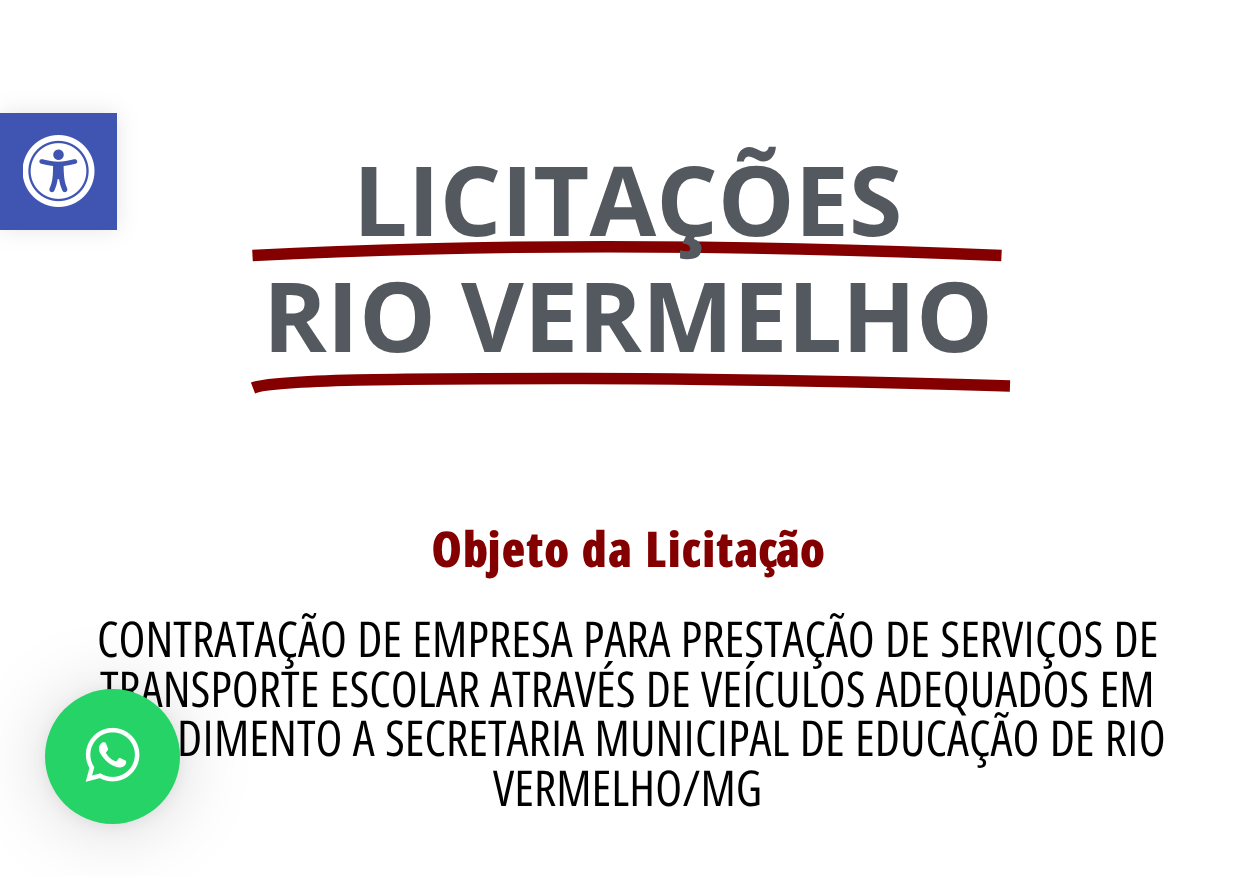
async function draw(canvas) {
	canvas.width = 1254;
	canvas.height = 876;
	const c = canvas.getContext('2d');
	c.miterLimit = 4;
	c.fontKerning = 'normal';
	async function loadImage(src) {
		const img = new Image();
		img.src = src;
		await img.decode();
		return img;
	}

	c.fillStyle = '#fff';
	c.fillRect(0, 0, 1254, 876);
	c.fillStyle = '#0000001a';
	c.filter = 'blur(11px)';
	c.beginPath();
	c.rect(0, 113, 117, 117);
	c.fill();
	c.filter = 'none';
	c.fillStyle = '#4054b2';
	c.fillRect(0, 113, 117, 117);
	c.drawImage(await loadImage('img1.png'), 23, 135, 72, 72);
	c.beginPath();
	c.moveTo(252.5, 255.5);
	c.bezierCurveTo(502, 242.5, 752, 245, 1001.5, 255.5);
	c.strokeStyle = '#840000';
	c.lineWidth = 11.6;
	c.stroke();
	c.font = 'bold 96.75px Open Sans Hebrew';
	c.fillStyle = '#54595f';
	c.fillText('LICITAÇÕES', 353, 236);
	c.beginPath();
	c.moveTo(253, 388);
	c.bezierCurveTo(275, 379.5, 404.5, 378.5, 564, 378.5);
	c.bezierCurveTo(754, 378, 1010, 386, 1010, 386);
	c.stroke();
	c.fillText('RIO VERMELHO', 263, 352);
	c.font = '800 49.5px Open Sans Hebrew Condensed';
	c.fillStyle = '#840000';
	c.fillText('Objeto da Licitação', 431, 567);
	c.font = '49.5px Open Sans Hebrew Condensed';
	c.fillStyle = '#000';
	for (const [text, x, y] of [
		['CONTRATAÇÃO DE EMPRESA PARA PRESTAÇÃO DE SERVIÇOS DE', 97, 657],
		['TRANSPORTE ESCOLAR ATRAVÉS DE VEÍCULOS ADEQUADOS EM', 100, 707],
		['DIMENTO A SECRETARIA MUNICIPAL DE EDUCAÇÃO DE RIO', 177, 756],
		['VERMELHO/MG', 493, 806],
	]) {
		c.fillText(text, x, y);
	}
	c.fillStyle = '#00000029';
	c.filter = 'blur(36px)';
	c.beginPath();
	c.roundRect(45, 693, 135, 135, 67.5);
	c.fill();
	c.filter = 'none';
	c.fillStyle = '#0000000f';
	c.filter = 'blur(7px)';
	c.beginPath();
	c.roundRect(45, 691, 135, 135, 67.5);
	c.fill();
	c.filter = 'none';
	c.fillStyle = '#25d366';
	c.beginPath();
	c.arc(112.5, 756.5, 67.5, 0, 2 * Math.PI);
	c.fill();
	c.drawImage(await loadImage('img2.png'), 85, 727, 55, 55);
}

draw(document.querySelector('canvas'));
